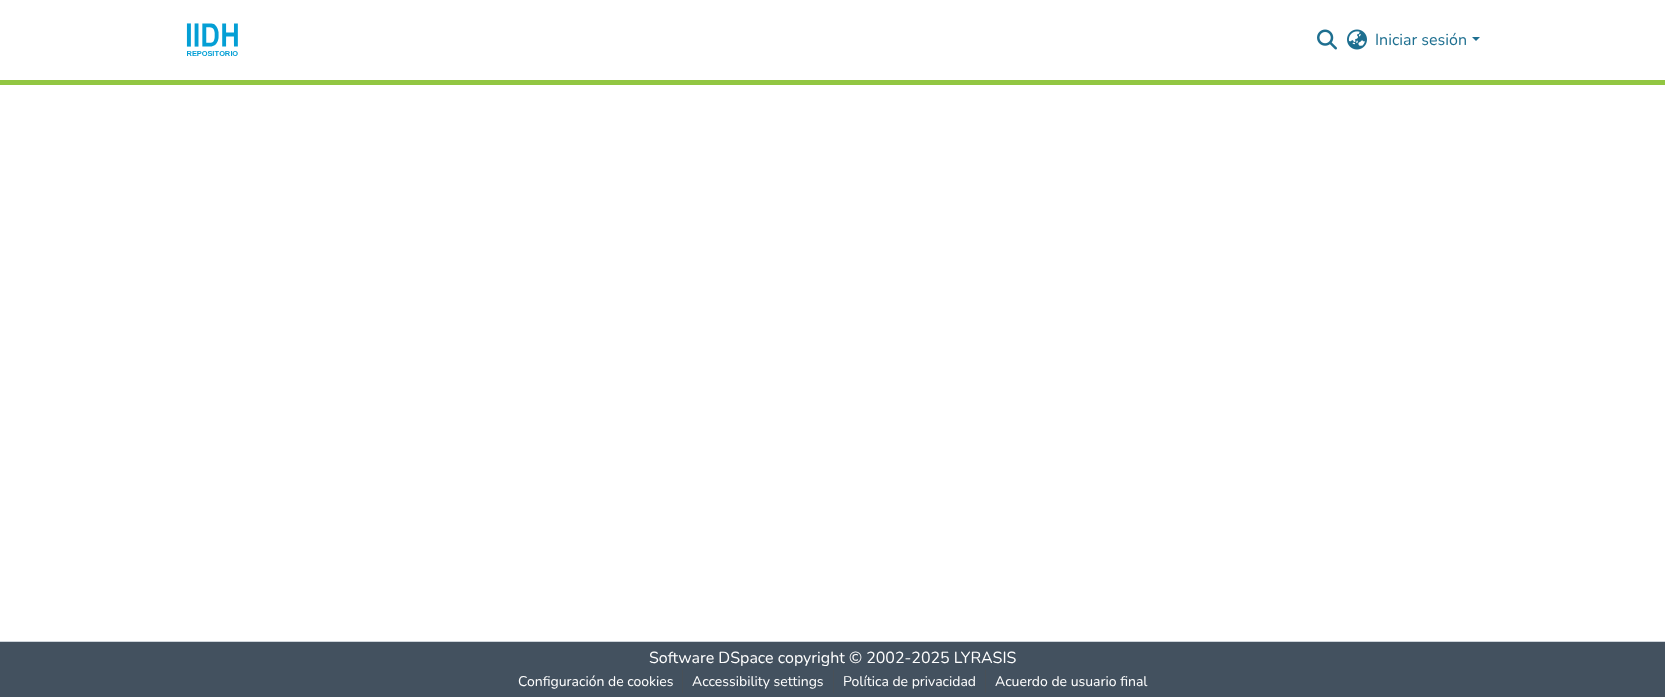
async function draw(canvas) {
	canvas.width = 1665;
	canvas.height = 697;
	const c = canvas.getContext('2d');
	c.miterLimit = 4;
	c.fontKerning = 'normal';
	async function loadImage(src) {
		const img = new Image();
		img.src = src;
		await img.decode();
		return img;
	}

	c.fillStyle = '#fff';
	c.fillRect(0, 0, 1665, 697);
	c.fillStyle = '#92c642';
	c.fillRect(0, 80, 1665, 5);
	c.drawImage(await loadImage('img1.png'), 186, 23, 52, 33);
	c.drawImage(await loadImage('img2.png'), 1317, 29, 20, 21);
	c.drawImage(await loadImage('img3.png'), 1347, 29, 20, 21);
	c.font = '16px Nunito';
	c.fillStyle = '#1e6f90';
	c.fillText('Iniciar sesión', 1375, 45);
	c.beginPath();
	c.moveTo(1472, 37);
	c.lineTo(1480, 37);
	c.lineTo(1476, 41);
	c.closePath();
	c.fill();
	c.fillStyle = '#43515f';
	c.fillRect(0, 642, 1665, 55);
	c.fillStyle = '#ced4da';
	c.fillRect(0, 641, 1665, 1);
	c.fillStyle = '#fff';
	c.fillText('Software DSpace copyright © 2002-2025 LYRASIS', 649, 663);
	c.font = '14px Nunito';
	c.fillText('Configuración de cookies', 518, 686);
	c.fillStyle = '#495057';
	c.fillRect(682, 670, 1, 23);
	c.fillStyle = '#fff';
	c.fillText('Accessibility settings', 692, 686);
	c.fillStyle = '#495057';
	c.fillRect(833, 670, 1, 23);
	c.fillStyle = '#fff';
	c.fillText('Política de privacidad', 843, 686);
	c.fillStyle = '#495057';
	c.fillRect(985, 670, 1, 23);
	c.fillStyle = '#fff';
	c.fillText('Acuerdo de usuario final', 995, 686);
}

draw(document.querySelector('canvas'));
